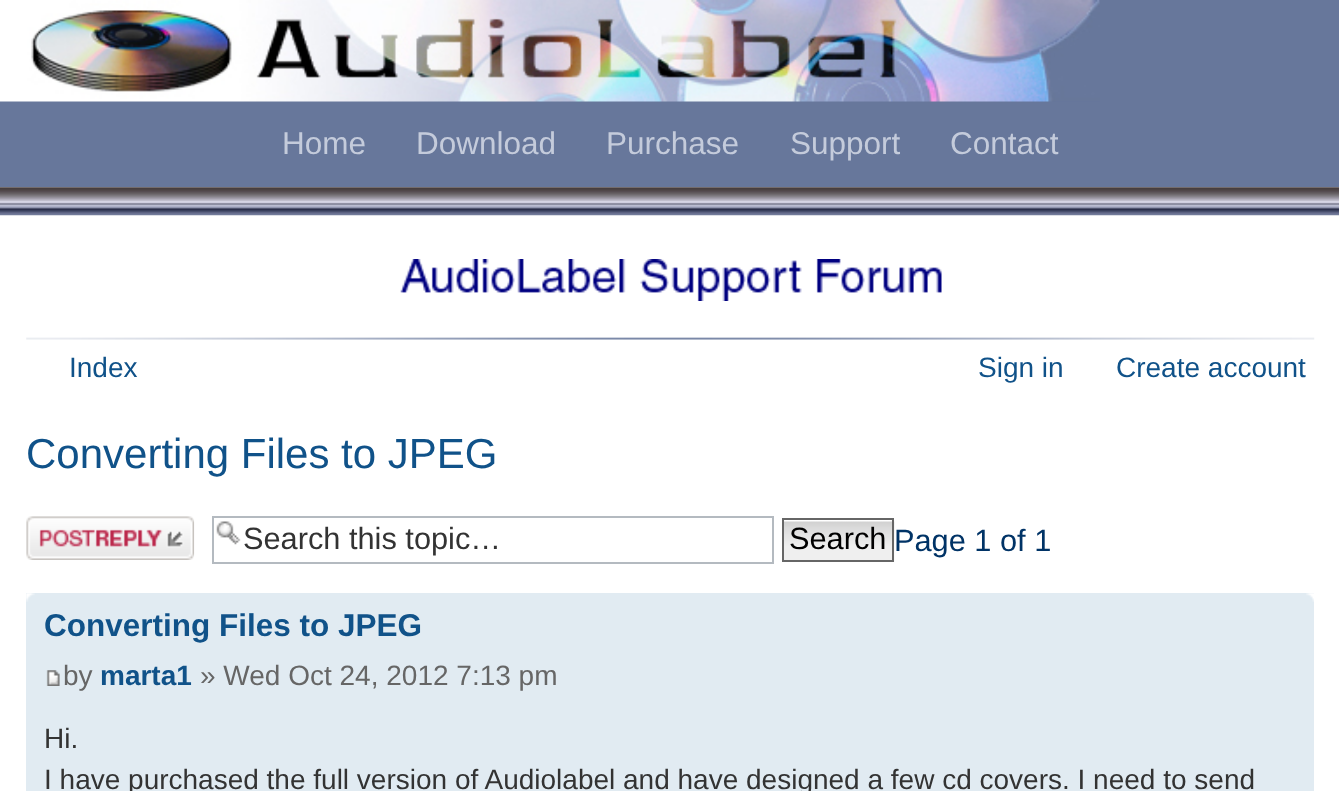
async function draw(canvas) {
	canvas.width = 1339;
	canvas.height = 791;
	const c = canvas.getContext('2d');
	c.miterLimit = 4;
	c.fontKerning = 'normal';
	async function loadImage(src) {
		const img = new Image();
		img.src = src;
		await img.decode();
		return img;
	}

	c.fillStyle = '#fff';
	c.fillRect(0, 0, 1339, 791);
	c.fillStyle = '#67779b';
	c.fillRect(0, 0, 1339, 187);
	c.drawImage(await loadImage('img1.png'), 0, 0, 1100, 102);
	c.font = '31.5px Liberation Sans';
	c.fillStyle = '#c4cbdb';
	for (const [text, x, y] of [
		['Home', 282, 154],
		['Download', 416, 154],
		['Purchase', 606, 154],
		['Support', 790, 154],
		['Contact', 950, 154],
	]) {
		c.fillText(text, x, y);
	}
	c.drawImage(await loadImage('img2.png'), 0, 187, 1339, 29);
	c.drawImage(await loadImage('img3.png'), 400, 259, 542, 42);
	c.drawImage(await loadImage('img4.png'), 26, 337, 1289, 3);
	c.font = '28px Liberation Sans';
	c.fillStyle = '#105289';
	for (const [text, x, y] of [
		['Index', 69, 377],
		['Sign in', 978, 377],
		['Create account', 1116, 377],
	]) {
		c.fillText(text, x, y);
	}
	c.font = '42px Liberation Sans';
	c.fillText('Converting Files to JPEG', 26, 468);
	c.drawImage(await loadImage('img5.png'), 26, 516, 169, 44);
	c.drawImage(await loadImage('img6.png'), 216, 521, 25, 24);
	c.strokeStyle = '#b4bac0';
	c.lineWidth = 2;
	c.strokeRect(213, 517, 560, 46);
	c.font = '30.75px Liberation Sans';
	c.fillStyle = '#333';
	c.fillText('Search this topic…', 243, 549);
	c.drawImage(await loadImage('img7.png'), 784, 520, 111, 42);
	c.strokeStyle = '#666';
	c.strokeRect(783, 519, 110, 42);
	c.fillStyle = '#000';
	c.fillText('Search', 789, 549);
	c.fillStyle = '#036';
	c.fillText('Page 1 of 1', 894, 551);
	c.fillStyle = '#e1ebf2';
	c.fillRect(26, 593, 1288, 198);
	c.drawImage(await loadImage('img8.png'), 26, 593, 9, 9);
	c.drawImage(await loadImage('img9.png'), 1306, 593, 8, 9);
	c.font = 'bold 31.5px Liberation Sans';
	c.fillStyle = '#105289';
	c.fillText('Converting Files to JPEG', 44, 636);
	c.drawImage(await loadImage('img10.png'), 46, 670, 14, 16);
	c.font = '28px Liberation Sans';
	c.fillStyle = '#666';
	c.fillText('by', 63, 685);
	c.font = 'bold 28px Liberation Sans';
	c.fillStyle = '#105289';
	c.fillText('marta1', 100, 685);
	c.font = '28px Liberation Sans';
	c.fillStyle = '#666';
	c.fillText('» Wed Oct 24, 2012 7:13 pm', 200, 685);
	c.fillStyle = '#333';
	c.fillText('Hi.', 44, 748);
	c.fillText('I have purchased the full version of Audiolabel and have designed a few cd covers. I need to send', 44, 789);
}

draw(document.querySelector('canvas'));
